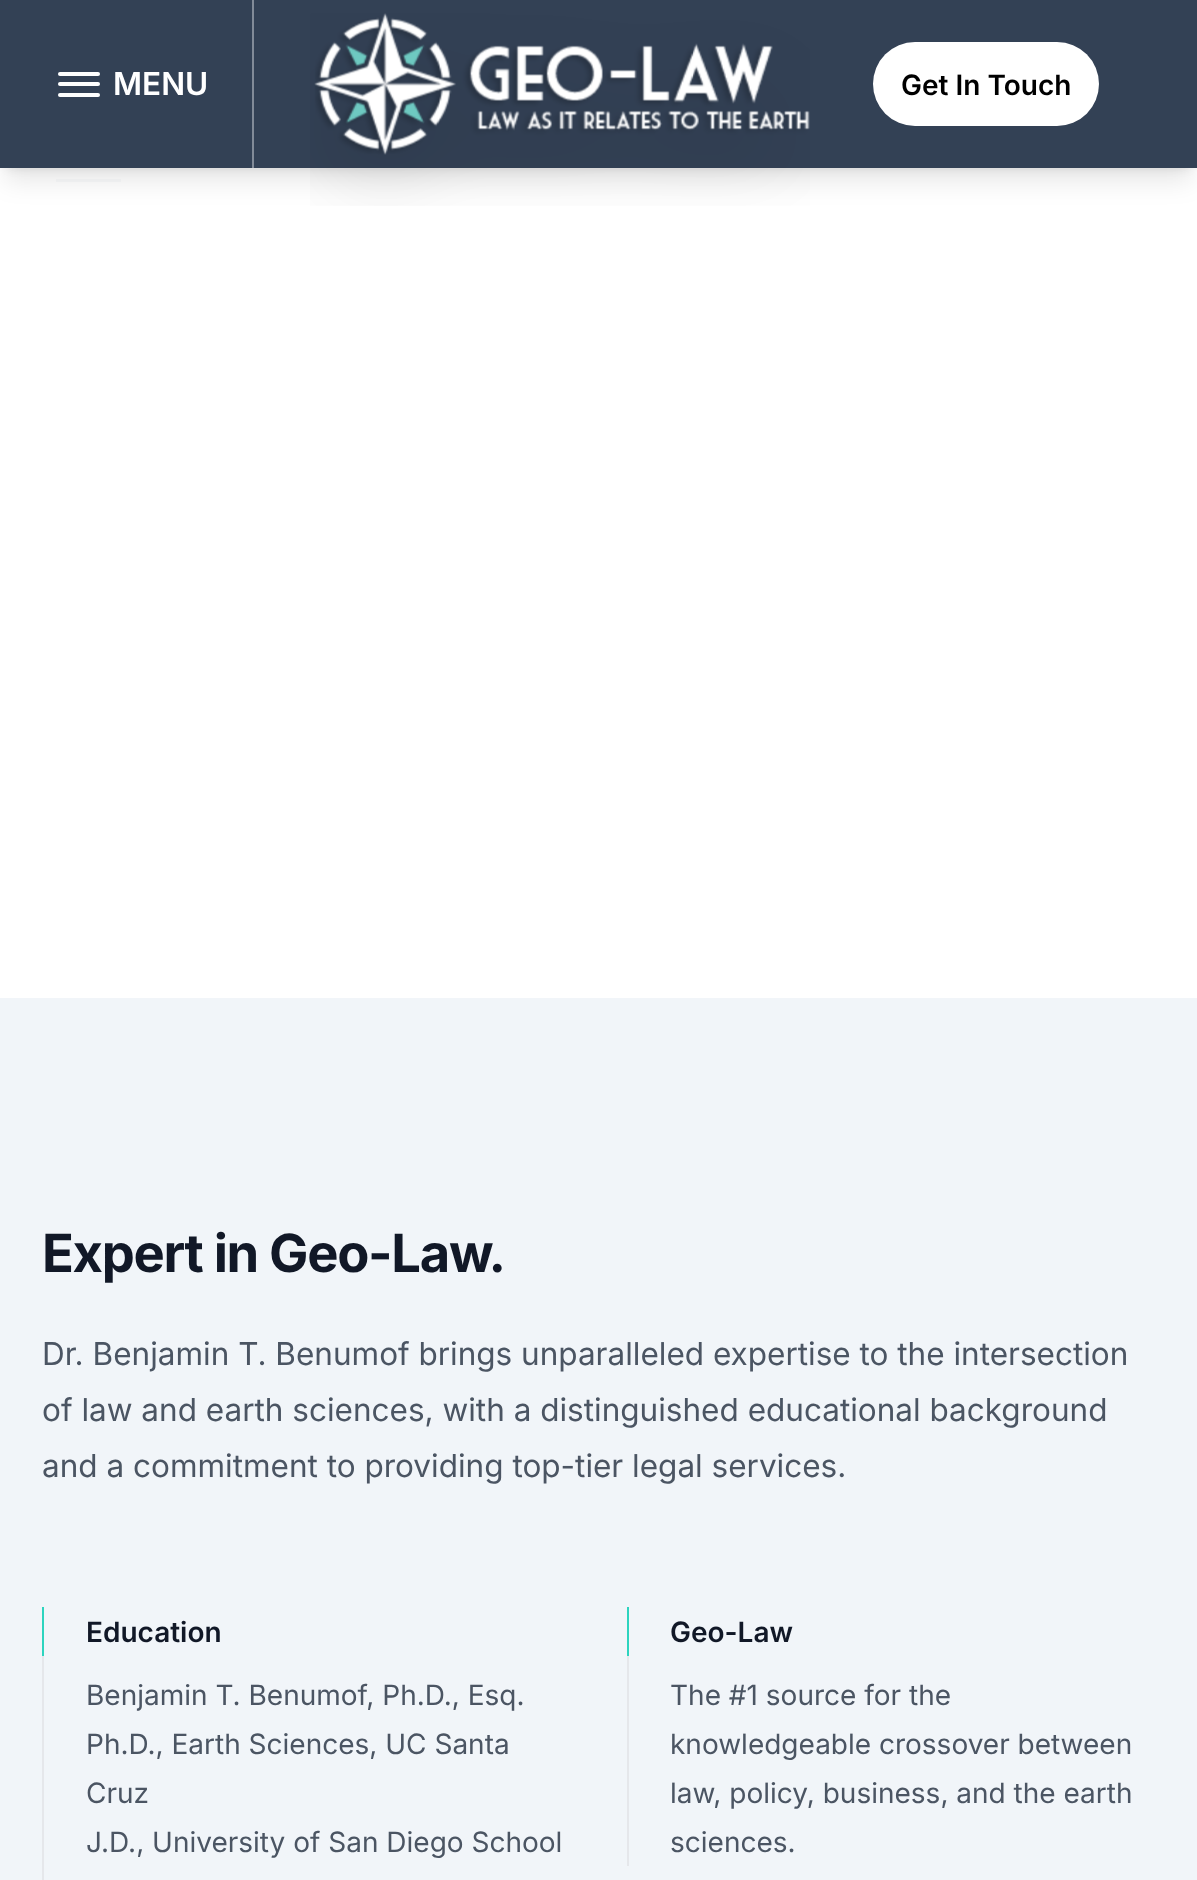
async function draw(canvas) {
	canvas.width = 1197;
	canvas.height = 1880;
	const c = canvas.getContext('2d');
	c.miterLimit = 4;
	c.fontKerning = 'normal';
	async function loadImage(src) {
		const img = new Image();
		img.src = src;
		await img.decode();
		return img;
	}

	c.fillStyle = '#fff';
	c.fillRect(0, 0, 1197, 1880);
	c.fillStyle = '#f9fafb';
	c.fillRect(56, 179, 65, 3);
	c.fillStyle = '#0000001a';
	c.filter = 'blur(5px)';
	c.beginPath();
	c.rect(7, 14, 1183, 154);
	c.fill();
	c.filter = 'none';
	c.filter = 'blur(13px)';
	c.beginPath();
	c.rect(5, 23, 1187, 157);
	c.fill();
	c.filter = 'none';
	c.fillStyle = '#334155';
	c.fillRect(0, 0, 1197, 168);
	c.fillStyle = '#828b98';
	c.fillRect(252, 0, 2, 168);
	c.fillStyle = '#fff';
	c.beginPath();
	c.roundRect(58, 72, 42, 4, 2);
	c.fill();
	c.beginPath();
	c.roundRect(58, 82, 42, 4, 2);
	c.fill();
	c.beginPath();
	c.roundRect(58, 93, 42, 4, 2);
	c.fill();
	c.font = '600 31.5px Inter';
	c.fillText('MENU', 113, 95);
	c.drawImage(await loadImage('img1.png'), 310, 13, 500, 193);
	c.beginPath();
	c.roundRect(873, 42, 226, 84, 42);
	c.fill();
	c.font = '600 28px Inter';
	c.fillStyle = '#000';
	c.fillText('Get In Touch', 901, 95);
	c.fillStyle = '#f1f5f9';
	c.fillRect(0, 998, 1197, 882);
	c.letterSpacing = '-1.3px';
	c.font = 'bold 52.5px Inter';
	c.fillStyle = '#111827';
	c.fillText('Expert in Geo-Law.', 42, 1272);
	c.letterSpacing = '0px';
	c.font = '31.5px Inter';
	c.fillStyle = '#4b5563';
	for (const [text, x, y] of [
		['Dr. Benjamin T. Benumof brings unparalleled expertise to the intersection', 42, 1365],
		['of law and earth sciences, with a distinguished educational background', 42, 1421],
		['and a commitment to providing top-tier legal services.', 42, 1477],
	]) {
		c.fillText(text, x, y);
	}
	c.fillStyle = '#2dd4bf';
	c.fillRect(42, 1607, 2, 49);
	c.font = '600 28px Inter';
	c.fillStyle = '#111827';
	c.fillText('Education', 86, 1642);
	c.fillStyle = '#e5e7eb';
	c.fillRect(42, 1656, 2, 224);
	c.font = '28px Inter';
	c.fillStyle = '#4b5563';
	for (const [text, x, y] of [
		['Benjamin T. Benumof, Ph.D., Esq.', 86, 1705],
		['Ph.D., Earth Sciences, UC Santa', 86, 1754],
		['Cruz', 86, 1803],
		['J.D., University of San Diego School', 86, 1852],
	]) {
		c.fillText(text, x, y);
	}
	c.fillStyle = '#2dd4bf';
	c.fillRect(627, 1607, 2, 49);
	c.font = '600 28px Inter';
	c.fillStyle = '#111827';
	c.fillText('Geo-Law', 670, 1642);
	c.fillStyle = '#e5e7eb';
	c.fillRect(627, 1656, 2, 210);
	c.font = '28px Inter';
	c.fillStyle = '#4b5563';
	for (const [text, x, y] of [
		['The #1 source for the', 670, 1705],
		['knowledgeable crossover between', 670, 1754],
		['law, policy, business, and the earth', 670, 1803],
		['sciences.', 670, 1852],
	]) {
		c.fillText(text, x, y);
	}
}

draw(document.querySelector('canvas'));
